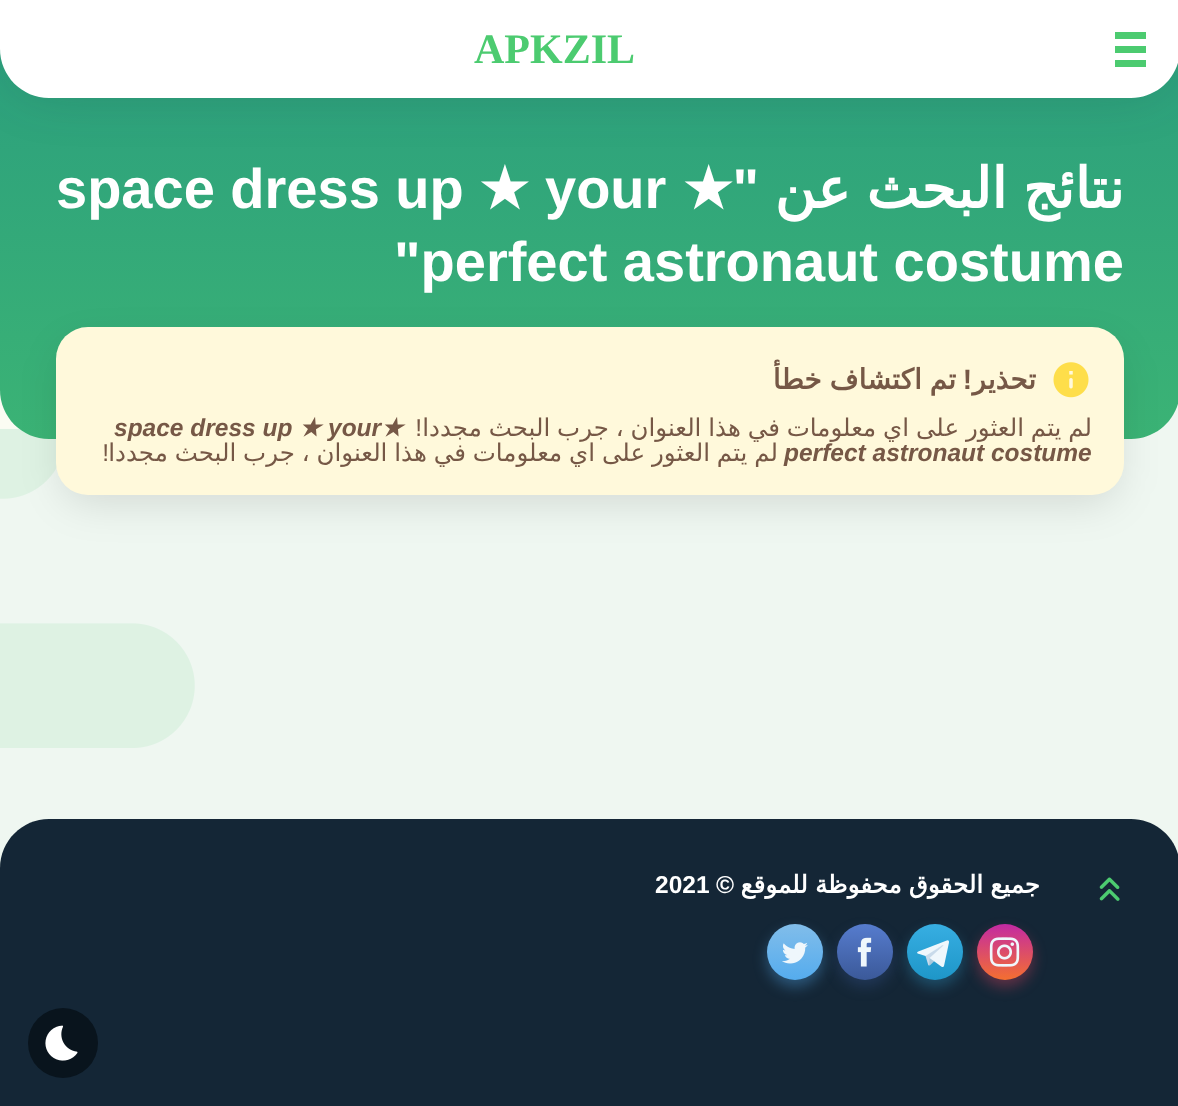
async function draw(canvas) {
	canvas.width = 1178;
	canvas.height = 1106;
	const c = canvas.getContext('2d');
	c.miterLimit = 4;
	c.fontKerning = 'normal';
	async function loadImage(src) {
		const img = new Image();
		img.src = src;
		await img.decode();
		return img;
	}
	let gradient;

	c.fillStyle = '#eff7f1';
	c.fillRect(0, 0, 1178, 1106);
	c.drawImage(await loadImage('img2.png'), 0, 390, 195, 358);
	gradient = c.createLinearGradient(590, 439, 590, -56);
	gradient.addColorStop(0, '#3bb375');
	gradient.addColorStop(1, '#289b7f');
	c.fillStyle = gradient;
	c.beginPath();
	c.moveTo(0, -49);
	c.lineTo(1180, -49);
	c.lineTo(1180, 390);
	c.bezierCurveTo(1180, 417, 1158, 439, 1131, 439);
	c.lineTo(49, 439);
	c.bezierCurveTo(22, 439, 0, 417, 0, 390);
	c.closePath();
	c.fill();
	c.fillStyle = '#172b3d33';
	c.filter = 'blur(28px)';
	c.beginPath();
	c.roundRect(14, 18, 1152, 70, 35);
	c.fill();
	c.filter = 'none';
	c.fillStyle = '#fff';
	c.beginPath();
	c.moveTo(0, 0);
	c.lineTo(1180, 0);
	c.lineTo(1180, 49);
	c.bezierCurveTo(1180, 76, 1158, 98, 1131, 98);
	c.lineTo(49, 98);
	c.bezierCurveTo(22, 98, 0, 76, 0, 49);
	c.closePath();
	c.fill();
	for (const [x, y, w, h, color] of [
		[1115, 32, 31, 7, '#4ccb70'],
		[1115, 46, 31, 7, '#4ccb70'],
		[1115, 60, 31, 7, '#4ccb70'],
	]) {
		c.fillStyle = color;
		c.fillRect(x, y, w, h);
	}
	c.font = 'bold 42px Liberation Serif';
	c.fillText('APKZIL', 474, 63);
	c.wordSpacing = '-2px';
	c.direction = 'rtl';
	c.font = 'bold 56px DejaVu Sans';
	c.fillStyle = '#fff';
	c.fillText('نتائج البحث عن', 1124, 208);
	c.wordSpacing = '0px';
	c.font = 'bold 56px Liberation Sans';
	c.fillText('"', 759, 208);
	c.font = 'bold 56px DejaVu Sans';
	c.fillText('★', 733, 208);
	c.direction = 'ltr';
	c.font = 'bold 56px Liberation Sans';
	c.fillText('your', 545, 208);
	c.font = 'bold 56px DejaVu Sans';
	c.fillText('★', 479, 208);
	c.font = 'bold 56px Liberation Sans';
	c.fillText('space dress up', 56, 208);
	c.fillText('"perfect astronaut costume', 394, 281);
	c.fillStyle = '#0000001f';
	c.filter = 'blur(21px)';
	c.beginPath();
	c.roundRect(63, 348, 1054, 154, 25);
	c.fill();
	c.filter = 'none';
	c.fillStyle = '#fff9db';
	c.beginPath();
	c.roundRect(56, 327, 1068, 168, 32);
	c.fill();
	c.drawImage(await loadImage('img1.png'), 1053, 362, 36, 36);
	c.direction = 'rtl';
	c.font = 'bold 28px DejaVu Sans';
	c.fillStyle = '#765846';
	c.fillText('تحذير', 1036, 389);
	c.font = 'bold 28px Liberation Sans';
	c.fillText('!', 972, 389);
	c.wordSpacing = '-1px';
	c.font = 'bold 28px DejaVu Sans';
	c.fillText('تم اكتشاف خطأ', 956, 389);
	c.wordSpacing = '-0.9px';
	c.font = '24.5px DejaVu Sans';
	c.fillText('لم يتم العثور على اي معلومات في هذا العنوان ، جرب البحث مجددا', 1092, 436);
	c.wordSpacing = '0px';
	c.font = '24.5px Liberation Sans';
	c.fillText('!', 422, 436);
	c.direction = 'ltr';
	c.font = 'italic bold 24.5px DejaVu Sans';
	c.fillText('★', 381, 436);
	c.font = 'italic bold 24.5px Liberation Sans';
	c.fillText('your', 328, 436);
	c.font = 'italic bold 24.5px DejaVu Sans';
	c.fillText('★', 299, 436);
	c.font = 'italic bold 24.5px Liberation Sans';
	c.fillText('space dress up', 114, 436);
	c.fillText('perfect astronaut costume', 784, 461);
	c.wordSpacing = '-0.9px';
	c.direction = 'rtl';
	c.font = '24.5px DejaVu Sans';
	c.fillText('لم يتم العثور على اي معلومات في هذا العنوان ، جرب البحث مجددا', 778, 461);
	c.wordSpacing = '0px';
	c.font = '24.5px Liberation Sans';
	c.fillText('!', 109, 461);
	c.fillStyle = '#142636';
	c.beginPath();
	c.moveTo(49, 819);
	c.lineTo(1131, 819);
	c.bezierCurveTo(1158, 819, 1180, 841, 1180, 868);
	c.lineTo(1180, 1106);
	c.lineTo(0, 1106);
	c.lineTo(0, 868);
	c.bezierCurveTo(0, 841, 22, 819, 49, 819);
	c.closePath();
	c.fill();
	c.drawImage(await loadImage('img3.png'), 1099, 877, 21, 24);
	c.wordSpacing = '-0.5px';
	c.font = 'bold 24.5px DejaVu Sans';
	c.fillStyle = '#fff';
	c.fillText('جميع الحقوق محفوظة للموقع', 1040, 893);
	c.wordSpacing = '0px';
	c.font = 'bold 24.5px Liberation Sans';
	c.fillText('©', 734, 893);
	c.direction = 'ltr';
	c.fillText('2021', 655, 893);
	c.fillStyle = '#e4405f5e';
	c.filter = 'blur(7px)';
	c.beginPath();
	c.roundRect(977, 931, 56, 56, 28);
	c.fill();
	c.filter = 'none';
	gradient = c.createLinearGradient(1005, 924, 1005, 980);
	gradient.addColorStop(0, '#c32aa3');
	gradient.addColorStop(1, '#f46f30');
	c.fillStyle = gradient;
	c.beginPath();
	c.arc(1005, 952, 28, 0, 2 * Math.PI);
	c.fill();
	c.drawImage(await loadImage('img4.png'), 989, 937, 31, 30);
	c.fillStyle = '#35ace04d';
	c.filter = 'blur(7px)';
	c.beginPath();
	c.roundRect(907, 931, 56, 56, 28);
	c.fill();
	c.filter = 'none';
	gradient = c.createLinearGradient(935, 924, 935, 980);
	gradient.addColorStop(0, '#37aee2');
	gradient.addColorStop(1, '#1e96c8');
	c.fillStyle = gradient;
	c.beginPath();
	c.arc(935, 952, 28, 0, 2 * Math.PI);
	c.fill();
	c.drawImage(await loadImage('img5.png'), 917, 940, 32, 27);
	c.fillStyle = '#3b599954';
	c.filter = 'blur(7px)';
	c.beginPath();
	c.roundRect(837, 931, 56, 56, 28);
	c.fill();
	c.filter = 'none';
	gradient = c.createLinearGradient(865, 924, 865, 980);
	gradient.addColorStop(0, '#567cce');
	gradient.addColorStop(1, '#3b5999');
	c.fillStyle = gradient;
	c.beginPath();
	c.arc(865, 952, 28, 0, 2 * Math.PI);
	c.fill();
	c.drawImage(await loadImage('img6.png'), 857, 937, 15, 30);
	c.fillStyle = '#55acee5e';
	c.filter = 'blur(7px)';
	c.beginPath();
	c.roundRect(767, 931, 56, 56, 28);
	c.fill();
	c.filter = 'none';
	gradient = c.createLinearGradient(795, 924, 795, 980);
	gradient.addColorStop(0, '#81bdea');
	gradient.addColorStop(1, '#55acee');
	c.fillStyle = gradient;
	c.beginPath();
	c.arc(795, 952, 28, 0, 2 * Math.PI);
	c.fill();
	c.drawImage(await loadImage('img7.png'), 782, 942, 26, 22);
	c.fillStyle = '#09141d';
	c.beginPath();
	c.arc(63, 1043, 35, 0, 2 * Math.PI);
	c.fill();
	c.drawImage(await loadImage('img8.png'), 45, 1025, 33, 36);
}

draw(document.querySelector('canvas'));
